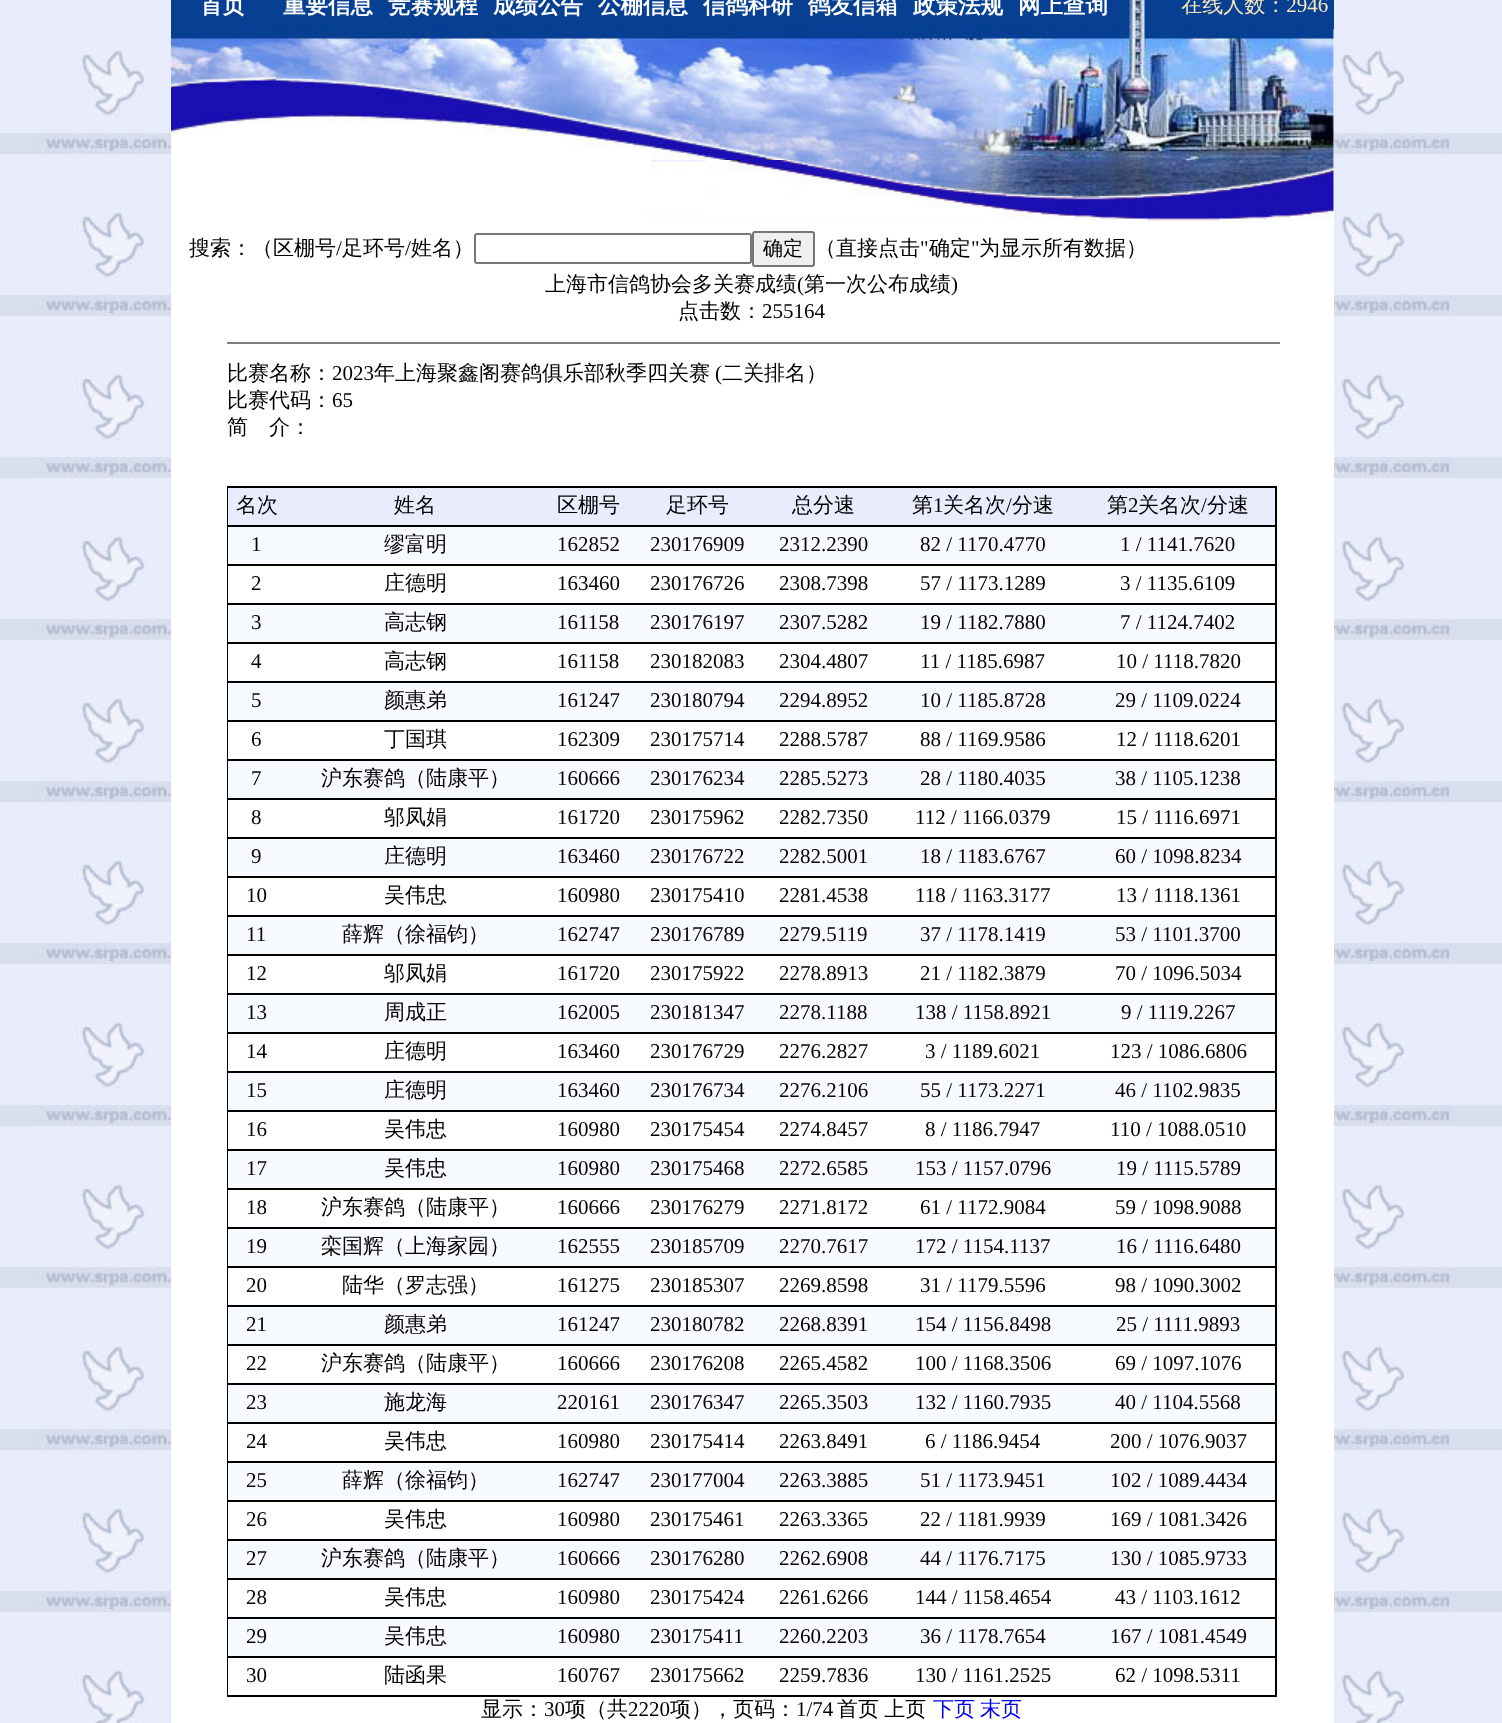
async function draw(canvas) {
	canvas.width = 1502;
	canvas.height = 1723;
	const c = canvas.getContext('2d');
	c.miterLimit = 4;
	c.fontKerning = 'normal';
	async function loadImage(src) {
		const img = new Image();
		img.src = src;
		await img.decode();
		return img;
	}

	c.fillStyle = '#fff';
	c.fillRect(0, 0, 1502, 1723);
	c.drawImage(await loadImage('img1.png'), 0, 0, 1502, 1723);
	c.fillStyle = '#073f92';
	c.fillRect(171, 0, 950, 28);
	c.font = 'bold 22.5px WenQuanYi Zen Hei';
	c.fillStyle = '#fff';
	for (const [text, x, y] of [
		['首页', 200, 13],
		['重要信息', 283, 13],
		['竞赛规程', 388, 13],
		['成绩公告', 493, 13],
		['公棚信息', 598, 13],
		['信鸽科研', 703, 13],
		['鸽友信箱', 808, 13],
		['政策法规', 913, 13],
		['网上查询', 1018, 13],
	]) {
		c.fillText(text, x, y);
	}
	c.fillStyle = '#073f92';
	c.fillRect(1121, 0, 213, 29);
	c.drawImage(await loadImage('img2.png'), 1129, 0, 16, 28);
	c.drawImage(await loadImage('img3.png'), 1181, 0, 147, 16);
	c.fillStyle = '#fff';
	c.fillRect(171, 29, 1163, 1694);
	c.drawImage(await loadImage('img4.png'), 171, 28, 1163, 132);
	c.drawImage(await loadImage('img5.png'), 650, 160, 684, 61);
	c.font = '500 21px WenQuanYi Zen Hei';
	c.fillStyle = '#000';
	c.fillText('搜索：（区棚号', 189, 255);
	c.font = '21px Liberation Serif';
	c.fillText('/', 336, 255);
	c.font = '500 21px WenQuanYi Zen Hei';
	c.fillText('足环号', 342, 255);
	c.font = '21px Liberation Serif';
	c.fillText('/', 405, 255);
	c.font = '500 21px WenQuanYi Zen Hei';
	c.fillText('姓名）', 411, 255);
	c.beginPath();
	c.roundRect(475, 234, 276, 29, 2);
	c.strokeStyle = '#767676';
	c.lineWidth = 2;
	c.stroke();
	c.fillStyle = '#efefef';
	c.beginPath();
	c.roundRect(753, 232, 61, 34, 2);
	c.fill();
	c.stroke();
	c.font = '500 20px WenQuanYi Zen Hei';
	c.fillStyle = '#000';
	c.fillText('确定', 763, 255);
	c.font = '500 21px WenQuanYi Zen Hei';
	c.fillText('（直接点击', 815, 255);
	c.font = '21px Liberation Serif';
	c.fillText('"', 920, 255);
	c.font = '500 21px WenQuanYi Zen Hei';
	c.fillText('确定', 929, 255);
	c.font = '21px Liberation Serif';
	c.fillText('"', 971, 255);
	c.font = '500 21px WenQuanYi Zen Hei';
	c.fillText('为显示所有数据）', 979, 255);
	c.fillText('上海市信鸽协会多关赛成绩', 545, 291);
	c.font = '21px Liberation Serif';
	c.fillText('(', 797, 291);
	c.font = '500 21px WenQuanYi Zen Hei';
	c.fillText('第一次公布成绩', 804, 291);
	c.font = '21px Liberation Serif';
	c.fillText(')', 951, 291);
	c.font = '500 21px WenQuanYi Zen Hei';
	c.fillText('点击数：', 678, 318);
	c.font = '21px Liberation Serif';
	c.fillText('255164', 762, 318);
	c.fillStyle = '#808080';
	c.fillRect(227, 342, 1053, 2);
	c.font = '500 21px WenQuanYi Zen Hei';
	c.fillStyle = '#000';
	c.fillText('比赛名称：', 227, 380);
	c.font = '21px Liberation Serif';
	c.fillText('2023', 332, 380);
	c.font = '500 21px WenQuanYi Zen Hei';
	c.fillText('年上海聚鑫阁赛鸽俱乐部秋季四关赛', 374, 380);
	c.font = '21px Liberation Serif';
	c.fillText('(', 715, 380);
	c.font = '500 21px WenQuanYi Zen Hei';
	c.fillText('二关排名）', 722, 380);
	c.fillText('比赛代码：', 227, 407);
	c.font = '21px Liberation Serif';
	c.fillText('65', 332, 407);
	c.font = '500 21px WenQuanYi Zen Hei';
	c.fillText('简', 227, 434);
	c.fillText('介：', 269, 434);
	c.fillRect(227, 486, 1050, 1211);
	c.fillStyle = '#e9ecfd';
	c.fillRect(228, 488, 1047, 37);
	c.fillStyle = '#000';
	for (const [text, x, y] of [
		['名次', 236, 512],
		['姓名', 394, 512],
		['区棚号', 557, 512],
		['足环号', 666, 512],
		['总分速', 792, 512],
		['第', 912, 512],
	]) {
		c.fillText(text, x, y);
	}
	c.font = '21px Liberation Serif';
	c.fillText('1', 933, 512);
	c.font = '500 21px WenQuanYi Zen Hei';
	c.fillText('关名次', 943, 512);
	c.font = '21px Liberation Serif';
	c.fillText('/', 1006, 512);
	c.font = '500 21px WenQuanYi Zen Hei';
	c.fillText('分速', 1012, 512);
	c.fillText('第', 1107, 512);
	c.font = '21px Liberation Serif';
	c.fillText('2', 1128, 512);
	c.font = '500 21px WenQuanYi Zen Hei';
	c.fillText('关名次', 1138, 512);
	c.font = '21px Liberation Serif';
	c.fillText('/', 1201, 512);
	c.font = '500 21px WenQuanYi Zen Hei';
	c.fillText('分速', 1207, 512);
	c.fillStyle = '#f7fbff';
	c.fillRect(228, 527, 1047, 37);
	c.font = '21px Liberation Serif';
	c.fillStyle = '#000';
	c.fillText('1', 251, 551);
	c.font = '500 21px WenQuanYi Zen Hei';
	c.fillText('缪富明', 384, 551);
	c.font = '21px Liberation Serif';
	for (const [text, x, y] of [
		['162852', 557, 551],
		['230176909', 650, 551],
		['2312.2390', 779, 551],
		['82 / 1170.4770', 920, 551],
		['1 / 1141.7620', 1120, 551],
	]) {
		c.fillText(text, x, y);
	}
	c.fillStyle = '#fff';
	c.fillRect(228, 566, 1047, 37);
	c.fillStyle = '#000';
	c.fillText('2', 251, 590);
	c.font = '500 21px WenQuanYi Zen Hei';
	c.fillText('庄德明', 384, 590);
	c.font = '21px Liberation Serif';
	for (const [text, x, y] of [
		['163460', 557, 590],
		['230176726', 650, 590],
		['2308.7398', 779, 590],
		['57 / 1173.1289', 920, 590],
		['3 / 1135.6109', 1120, 590],
	]) {
		c.fillText(text, x, y);
	}
	c.fillStyle = '#f7fbff';
	c.fillRect(228, 605, 1047, 37);
	c.fillStyle = '#000';
	c.fillText('3', 251, 629);
	c.font = '500 21px WenQuanYi Zen Hei';
	c.fillText('高志钢', 384, 629);
	c.font = '21px Liberation Serif';
	for (const [text, x, y] of [
		['161158', 557, 629],
		['230176197', 650, 629],
		['2307.5282', 779, 629],
		['19 / 1182.7880', 920, 629],
		['7 / 1124.7402', 1120, 629],
	]) {
		c.fillText(text, x, y);
	}
	c.fillStyle = '#fff';
	c.fillRect(228, 644, 1047, 37);
	c.fillStyle = '#000';
	c.fillText('4', 251, 668);
	c.font = '500 21px WenQuanYi Zen Hei';
	c.fillText('高志钢', 384, 668);
	c.font = '21px Liberation Serif';
	for (const [text, x, y] of [
		['161158', 557, 668],
		['230182083', 650, 668],
		['2304.4807', 779, 668],
		['11 / 1185.6987', 920, 668],
		['10 / 1118.7820', 1116, 668],
	]) {
		c.fillText(text, x, y);
	}
	c.fillStyle = '#f7fbff';
	c.fillRect(228, 683, 1047, 37);
	c.fillStyle = '#000';
	c.fillText('5', 251, 707);
	c.font = '500 21px WenQuanYi Zen Hei';
	c.fillText('颜惠弟', 384, 707);
	c.font = '21px Liberation Serif';
	for (const [text, x, y] of [
		['161247', 557, 707],
		['230180794', 650, 707],
		['2294.8952', 779, 707],
		['10 / 1185.8728', 920, 707],
		['29 / 1109.0224', 1115, 707],
	]) {
		c.fillText(text, x, y);
	}
	c.fillStyle = '#fff';
	c.fillRect(228, 722, 1047, 37);
	c.fillStyle = '#000';
	c.fillText('6', 251, 746);
	c.font = '500 21px WenQuanYi Zen Hei';
	c.fillText('丁国琪', 384, 746);
	c.font = '21px Liberation Serif';
	for (const [text, x, y] of [
		['162309', 557, 746],
		['230175714', 650, 746],
		['2288.5787', 779, 746],
		['88 / 1169.9586', 920, 746],
		['12 / 1118.6201', 1116, 746],
	]) {
		c.fillText(text, x, y);
	}
	c.fillStyle = '#f7fbff';
	c.fillRect(228, 761, 1047, 37);
	c.fillStyle = '#000';
	c.fillText('7', 251, 785);
	c.font = '500 21px WenQuanYi Zen Hei';
	c.fillText('沪东赛鸽（陆康平）', 321, 785);
	c.font = '21px Liberation Serif';
	for (const [text, x, y] of [
		['160666', 557, 785],
		['230176234', 650, 785],
		['2285.5273', 779, 785],
		['28 / 1180.4035', 920, 785],
		['38 / 1105.1238', 1115, 785],
	]) {
		c.fillText(text, x, y);
	}
	c.fillStyle = '#fff';
	c.fillRect(228, 800, 1047, 37);
	c.fillStyle = '#000';
	c.fillText('8', 251, 824);
	c.font = '500 21px WenQuanYi Zen Hei';
	c.fillText('邬凤娟', 384, 824);
	c.font = '21px Liberation Serif';
	for (const [text, x, y] of [
		['161720', 557, 824],
		['230175962', 650, 824],
		['2282.7350', 779, 824],
		['112 / 1166.0379', 915, 824],
		['15 / 1116.6971', 1116, 824],
	]) {
		c.fillText(text, x, y);
	}
	c.fillStyle = '#f7fbff';
	c.fillRect(228, 839, 1047, 37);
	c.fillStyle = '#000';
	c.fillText('9', 251, 863);
	c.font = '500 21px WenQuanYi Zen Hei';
	c.fillText('庄德明', 384, 863);
	c.font = '21px Liberation Serif';
	for (const [text, x, y] of [
		['163460', 557, 863],
		['230176722', 650, 863],
		['2282.5001', 779, 863],
		['18 / 1183.6767', 920, 863],
		['60 / 1098.8234', 1115, 863],
	]) {
		c.fillText(text, x, y);
	}
	c.fillStyle = '#fff';
	c.fillRect(228, 878, 1047, 37);
	c.fillStyle = '#000';
	c.fillText('10', 246, 902);
	c.font = '500 21px WenQuanYi Zen Hei';
	c.fillText('吴伟忠', 384, 902);
	c.font = '21px Liberation Serif';
	for (const [text, x, y] of [
		['160980', 557, 902],
		['230175410', 650, 902],
		['2281.4538', 779, 902],
		['118 / 1163.3177', 915, 902],
		['13 / 1118.1361', 1116, 902],
	]) {
		c.fillText(text, x, y);
	}
	c.fillStyle = '#f7fbff';
	c.fillRect(228, 917, 1047, 37);
	c.fillStyle = '#000';
	c.fillText('11', 246, 941);
	c.font = '500 21px WenQuanYi Zen Hei';
	c.fillText('薛辉（徐福钧）', 342, 941);
	c.font = '21px Liberation Serif';
	for (const [text, x, y] of [
		['162747', 557, 941],
		['230176789', 650, 941],
		['2279.5119', 779, 941],
		['37 / 1178.1419', 920, 941],
		['53 / 1101.3700', 1115, 941],
	]) {
		c.fillText(text, x, y);
	}
	c.fillStyle = '#fff';
	c.fillRect(228, 956, 1047, 37);
	c.fillStyle = '#000';
	c.fillText('12', 246, 980);
	c.font = '500 21px WenQuanYi Zen Hei';
	c.fillText('邬凤娟', 384, 980);
	c.font = '21px Liberation Serif';
	for (const [text, x, y] of [
		['161720', 557, 980],
		['230175922', 650, 980],
		['2278.8913', 779, 980],
		['21 / 1182.3879', 920, 980],
		['70 / 1096.5034', 1115, 980],
	]) {
		c.fillText(text, x, y);
	}
	c.fillStyle = '#f7fbff';
	c.fillRect(228, 995, 1047, 37);
	c.fillStyle = '#000';
	c.fillText('13', 246, 1019);
	c.font = '500 21px WenQuanYi Zen Hei';
	c.fillText('周成正', 384, 1019);
	c.font = '21px Liberation Serif';
	for (const [text, x, y] of [
		['162005', 557, 1019],
		['230181347', 650, 1019],
		['2278.1188', 779, 1019],
		['138 / 1158.8921', 915, 1019],
		['9 / 1119.2267', 1121, 1019],
	]) {
		c.fillText(text, x, y);
	}
	c.fillStyle = '#fff';
	c.fillRect(228, 1034, 1047, 37);
	c.fillStyle = '#000';
	c.fillText('14', 246, 1058);
	c.font = '500 21px WenQuanYi Zen Hei';
	c.fillText('庄德明', 384, 1058);
	c.font = '21px Liberation Serif';
	for (const [text, x, y] of [
		['163460', 557, 1058],
		['230176729', 650, 1058],
		['2276.2827', 779, 1058],
		['3 / 1189.6021', 925, 1058],
		['123 / 1086.6806', 1110, 1058],
	]) {
		c.fillText(text, x, y);
	}
	c.fillStyle = '#f7fbff';
	c.fillRect(228, 1073, 1047, 37);
	c.fillStyle = '#000';
	c.fillText('15', 246, 1097);
	c.font = '500 21px WenQuanYi Zen Hei';
	c.fillText('庄德明', 384, 1097);
	c.font = '21px Liberation Serif';
	for (const [text, x, y] of [
		['163460', 557, 1097],
		['230176734', 650, 1097],
		['2276.2106', 779, 1097],
		['55 / 1173.2271', 920, 1097],
		['46 / 1102.9835', 1115, 1097],
	]) {
		c.fillText(text, x, y);
	}
	c.fillStyle = '#fff';
	c.fillRect(228, 1112, 1047, 37);
	c.fillStyle = '#000';
	c.fillText('16', 246, 1136);
	c.font = '500 21px WenQuanYi Zen Hei';
	c.fillText('吴伟忠', 384, 1136);
	c.font = '21px Liberation Serif';
	for (const [text, x, y] of [
		['160980', 557, 1136],
		['230175454', 650, 1136],
		['2274.8457', 779, 1136],
		['8 / 1186.7947', 925, 1136],
		['110 / 1088.0510', 1110, 1136],
	]) {
		c.fillText(text, x, y);
	}
	c.fillStyle = '#f7fbff';
	c.fillRect(228, 1151, 1047, 37);
	c.fillStyle = '#000';
	c.fillText('17', 246, 1175);
	c.font = '500 21px WenQuanYi Zen Hei';
	c.fillText('吴伟忠', 384, 1175);
	c.font = '21px Liberation Serif';
	for (const [text, x, y] of [
		['160980', 557, 1175],
		['230175468', 650, 1175],
		['2272.6585', 779, 1175],
		['153 / 1157.0796', 915, 1175],
		['19 / 1115.5789', 1116, 1175],
	]) {
		c.fillText(text, x, y);
	}
	c.fillStyle = '#fff';
	c.fillRect(228, 1190, 1047, 37);
	c.fillStyle = '#000';
	c.fillText('18', 246, 1214);
	c.font = '500 21px WenQuanYi Zen Hei';
	c.fillText('沪东赛鸽（陆康平）', 321, 1214);
	c.font = '21px Liberation Serif';
	for (const [text, x, y] of [
		['160666', 557, 1214],
		['230176279', 650, 1214],
		['2271.8172', 779, 1214],
		['61 / 1172.9084', 920, 1214],
		['59 / 1098.9088', 1115, 1214],
	]) {
		c.fillText(text, x, y);
	}
	c.fillStyle = '#f7fbff';
	c.fillRect(228, 1229, 1047, 37);
	c.fillStyle = '#000';
	c.fillText('19', 246, 1253);
	c.font = '500 21px WenQuanYi Zen Hei';
	c.fillText('栾国辉（上海家园）', 321, 1253);
	c.font = '21px Liberation Serif';
	for (const [text, x, y] of [
		['162555', 557, 1253],
		['230185709', 650, 1253],
		['2270.7617', 779, 1253],
		['172 / 1154.1137', 915, 1253],
		['16 / 1116.6480', 1116, 1253],
	]) {
		c.fillText(text, x, y);
	}
	c.fillStyle = '#fff';
	c.fillRect(228, 1268, 1047, 37);
	c.fillStyle = '#000';
	c.fillText('20', 246, 1292);
	c.font = '500 21px WenQuanYi Zen Hei';
	c.fillText('陆华（罗志强）', 342, 1292);
	c.font = '21px Liberation Serif';
	for (const [text, x, y] of [
		['161275', 557, 1292],
		['230185307', 650, 1292],
		['2269.8598', 779, 1292],
		['31 / 1179.5596', 920, 1292],
		['98 / 1090.3002', 1115, 1292],
	]) {
		c.fillText(text, x, y);
	}
	c.fillStyle = '#f7fbff';
	c.fillRect(228, 1307, 1047, 37);
	c.fillStyle = '#000';
	c.fillText('21', 246, 1331);
	c.font = '500 21px WenQuanYi Zen Hei';
	c.fillText('颜惠弟', 384, 1331);
	c.font = '21px Liberation Serif';
	for (const [text, x, y] of [
		['161247', 557, 1331],
		['230180782', 650, 1331],
		['2268.8391', 779, 1331],
		['154 / 1156.8498', 915, 1331],
		['25 / 1111.9893', 1116, 1331],
	]) {
		c.fillText(text, x, y);
	}
	c.fillStyle = '#fff';
	c.fillRect(228, 1346, 1047, 37);
	c.fillStyle = '#000';
	c.fillText('22', 246, 1370);
	c.font = '500 21px WenQuanYi Zen Hei';
	c.fillText('沪东赛鸽（陆康平）', 321, 1370);
	c.font = '21px Liberation Serif';
	for (const [text, x, y] of [
		['160666', 557, 1370],
		['230176208', 650, 1370],
		['2265.4582', 779, 1370],
		['100 / 1168.3506', 915, 1370],
		['69 / 1097.1076', 1115, 1370],
	]) {
		c.fillText(text, x, y);
	}
	c.fillStyle = '#f7fbff';
	c.fillRect(228, 1385, 1047, 37);
	c.fillStyle = '#000';
	c.fillText('23', 246, 1409);
	c.font = '500 21px WenQuanYi Zen Hei';
	c.fillText('施龙海', 384, 1409);
	c.font = '21px Liberation Serif';
	for (const [text, x, y] of [
		['220161', 557, 1409],
		['230176347', 650, 1409],
		['2265.3503', 779, 1409],
		['132 / 1160.7935', 915, 1409],
		['40 / 1104.5568', 1115, 1409],
	]) {
		c.fillText(text, x, y);
	}
	c.fillStyle = '#fff';
	c.fillRect(228, 1424, 1047, 37);
	c.fillStyle = '#000';
	c.fillText('24', 246, 1448);
	c.font = '500 21px WenQuanYi Zen Hei';
	c.fillText('吴伟忠', 384, 1448);
	c.font = '21px Liberation Serif';
	for (const [text, x, y] of [
		['160980', 557, 1448],
		['230175414', 650, 1448],
		['2263.8491', 779, 1448],
		['6 / 1186.9454', 925, 1448],
		['200 / 1076.9037', 1110, 1448],
	]) {
		c.fillText(text, x, y);
	}
	c.fillStyle = '#f7fbff';
	c.fillRect(228, 1463, 1047, 37);
	c.fillStyle = '#000';
	c.fillText('25', 246, 1487);
	c.font = '500 21px WenQuanYi Zen Hei';
	c.fillText('薛辉（徐福钧）', 342, 1487);
	c.font = '21px Liberation Serif';
	for (const [text, x, y] of [
		['162747', 557, 1487],
		['230177004', 650, 1487],
		['2263.3885', 779, 1487],
		['51 / 1173.9451', 920, 1487],
		['102 / 1089.4434', 1110, 1487],
	]) {
		c.fillText(text, x, y);
	}
	c.fillStyle = '#fff';
	c.fillRect(228, 1502, 1047, 37);
	c.fillStyle = '#000';
	c.fillText('26', 246, 1526);
	c.font = '500 21px WenQuanYi Zen Hei';
	c.fillText('吴伟忠', 384, 1526);
	c.font = '21px Liberation Serif';
	for (const [text, x, y] of [
		['160980', 557, 1526],
		['230175461', 650, 1526],
		['2263.3365', 779, 1526],
		['22 / 1181.9939', 920, 1526],
		['169 / 1081.3426', 1110, 1526],
	]) {
		c.fillText(text, x, y);
	}
	c.fillStyle = '#f7fbff';
	c.fillRect(228, 1541, 1047, 37);
	c.fillStyle = '#000';
	c.fillText('27', 246, 1565);
	c.font = '500 21px WenQuanYi Zen Hei';
	c.fillText('沪东赛鸽（陆康平）', 321, 1565);
	c.font = '21px Liberation Serif';
	for (const [text, x, y] of [
		['160666', 557, 1565],
		['230176280', 650, 1565],
		['2262.6908', 779, 1565],
		['44 / 1176.7175', 920, 1565],
		['130 / 1085.9733', 1110, 1565],
	]) {
		c.fillText(text, x, y);
	}
	c.fillStyle = '#fff';
	c.fillRect(228, 1580, 1047, 37);
	c.fillStyle = '#000';
	c.fillText('28', 246, 1604);
	c.font = '500 21px WenQuanYi Zen Hei';
	c.fillText('吴伟忠', 384, 1604);
	c.font = '21px Liberation Serif';
	for (const [text, x, y] of [
		['160980', 557, 1604],
		['230175424', 650, 1604],
		['2261.6266', 779, 1604],
		['144 / 1158.4654', 915, 1604],
		['43 / 1103.1612', 1115, 1604],
	]) {
		c.fillText(text, x, y);
	}
	c.fillStyle = '#f7fbff';
	c.fillRect(228, 1619, 1047, 37);
	c.fillStyle = '#000';
	c.fillText('29', 246, 1643);
	c.font = '500 21px WenQuanYi Zen Hei';
	c.fillText('吴伟忠', 384, 1643);
	c.font = '21px Liberation Serif';
	for (const [text, x, y] of [
		['160980', 557, 1643],
		['230175411', 650, 1643],
		['2260.2203', 779, 1643],
		['36 / 1178.7654', 920, 1643],
		['167 / 1081.4549', 1110, 1643],
	]) {
		c.fillText(text, x, y);
	}
	c.fillStyle = '#fff';
	c.fillRect(228, 1658, 1047, 37);
	c.fillStyle = '#000';
	c.fillText('30', 246, 1682);
	c.font = '500 21px WenQuanYi Zen Hei';
	c.fillText('陆函果', 384, 1682);
	c.font = '21px Liberation Serif';
	for (const [text, x, y] of [
		['160767', 557, 1682],
		['230175662', 650, 1682],
		['2259.7836', 779, 1682],
		['130 / 1161.2525', 915, 1682],
		['62 / 1098.5311', 1115, 1682],
	]) {
		c.fillText(text, x, y);
	}
	c.font = '500 21px WenQuanYi Zen Hei';
	c.fillText('显示：', 481, 1716);
	c.font = '21px Liberation Serif';
	c.fillText('30', 544, 1716);
	c.font = '500 21px WenQuanYi Zen Hei';
	c.fillText('项（共', 565, 1716);
	c.font = '21px Liberation Serif';
	c.fillText('2220', 628, 1716);
	c.font = '500 21px WenQuanYi Zen Hei';
	c.fillText('项），页码：', 670, 1716);
	c.font = '21px Liberation Serif';
	c.fillText('1/74', 796, 1716);
	c.wordSpacing = '-1px';
	c.font = '500 21px WenQuanYi Zen Hei';
	c.fillText('首页 上页', 837, 1716);
	c.wordSpacing = '0px';
	c.fillStyle = '#00e';
	c.fillText('下页', 933, 1716);
	c.fillText('末页', 980, 1716);
}

draw(document.querySelector('canvas'));
